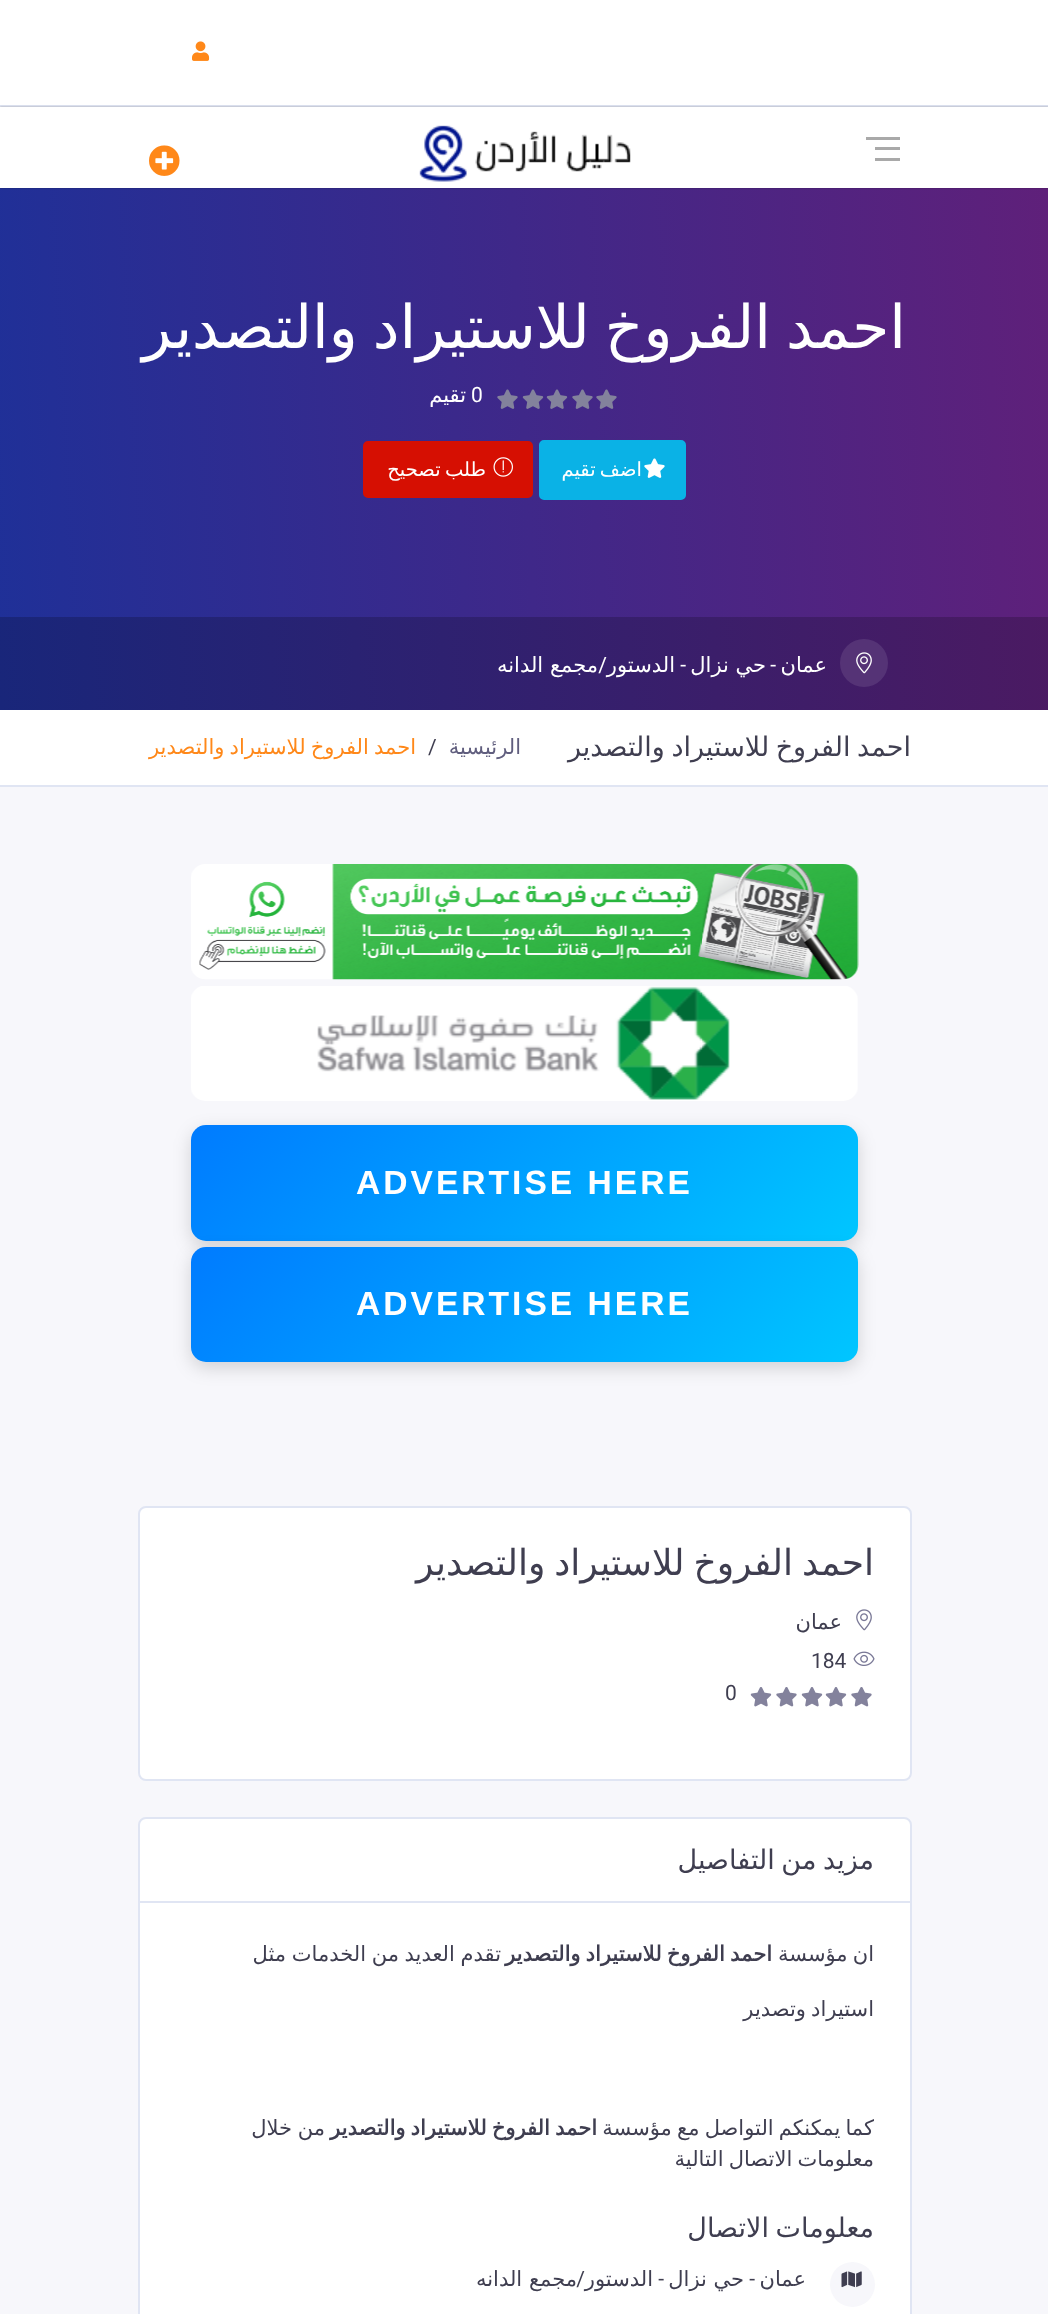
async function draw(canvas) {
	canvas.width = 1048;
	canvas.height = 2314;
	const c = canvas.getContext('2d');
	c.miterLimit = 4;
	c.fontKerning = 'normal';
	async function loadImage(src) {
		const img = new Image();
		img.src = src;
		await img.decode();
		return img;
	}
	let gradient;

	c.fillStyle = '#f7f7fb';
	c.fillRect(0, 0, 1048, 2314);
	c.fillStyle = '#fff';
	c.fillRect(0, 0, 1048, 105);
	c.fillStyle = '#e0e5f3';
	c.fillRect(0, 105, 1048, 2);
	c.drawImage(await loadImage('img1.png'), 192, 41, 18, 20);
	gradient = c.createLinearGradient(-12, 477, 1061, 420);
	gradient.addColorStop(0, '#1f3098');
	gradient.addColorStop(1, '#5f207a');
	c.fillStyle = gradient;
	c.fillRect(0, 188, 1048, 429);
	c.fillStyle = '#0000004d';
	c.filter = 'blur(1px)';
	c.beginPath();
	c.rect(0, 107, 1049, 81);
	c.fill();
	c.filter = 'none';
	for (const [x, y, w, h, color] of [
		[0, 107, 1048, 81, '#fff'],
		[875, 147, 25, 3, '#a9a9a9'],
		[866, 137, 34, 3, '#a9a9a9'],
		[875, 158, 25, 3, '#a9a9a9'],
	]) {
		c.fillStyle = color;
		c.fillRect(x, y, w, h);
	}
	c.drawImage(await loadImage('img2.png'), 419, 125, 212, 57);
	c.drawImage(await loadImage('img3.png'), 149, 145, 31, 31);
	gradient = c.createLinearGradient(-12, 477, 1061, 420);
	gradient.addColorStop(0, '#19267a');
	gradient.addColorStop(1, '#4c1a62');
	c.fillStyle = gradient;
	c.fillRect(0, 617, 1048, 93);
	c.wordSpacing = '-4px';
	c.direction = 'rtl';
	c.font = '60px DejaVu Sans';
	c.fillStyle = '#fff';
	c.fillText('احمد الفروخ للاستيراد والتصدير', 906, 348);
	c.drawImage(await loadImage('img4.png'), 596, 389, 21, 20);
	c.drawImage(await loadImage('img5.png'), 572, 389, 21, 20);
	c.drawImage(await loadImage('img6.png'), 546, 389, 22, 20);
	c.drawImage(await loadImage('img7.png'), 522, 389, 22, 20);
	c.drawImage(await loadImage('img8.png'), 497, 389, 21, 20);
	c.wordSpacing = '0px';
	c.direction = 'ltr';
	c.font = '21px Roboto';
	c.fillText('0', 471, 402);
	c.direction = 'rtl';
	c.font = '21px DejaVu Sans';
	c.fillText('تقيم', 466, 402);
	c.fillStyle = '#0ab2e6';
	c.beginPath();
	c.roundRect(540, 441, 145, 58, 4);
	c.fill();
	c.strokeStyle = '#0ab2e6';
	c.lineWidth = 2;
	c.stroke();
	c.drawImage(await loadImage('img9.png'), 644, 458, 21, 20);
	c.letterSpacing = '0.5px';
	c.wordSpacing = '-2.5px';
	c.font = '19.5px DejaVu Sans';
	c.fillStyle = '#fff';
	c.fillText('اضف تقيم', 642, 476);
	c.fillStyle = '#d60f02';
	c.beginPath();
	c.roundRect(364, 442, 168, 55, 4);
	c.fill();
	c.strokeStyle = '#d60f02';
	c.stroke();
	c.drawImage(await loadImage('img10.png'), 493, 457, 20, 20);
	c.fillStyle = '#fff';
	c.fillText('طلب تصحيح', 486, 476);
	c.fillStyle = '#553376';
	c.beginPath();
	c.arc(864, 663, 24, 0, 2 * Math.PI);
	c.fill();
	c.drawImage(await loadImage('img11.png'), 856, 652, 16, 22);
	c.letterSpacing = '0px';
	c.wordSpacing = '0px';
	c.font = '21px DejaVu Sans';
	c.fillStyle = '#fff';
	c.fillText('عمان', 827, 672);
	c.font = '21px Roboto';
	c.fillText('-', 776, 672);
	c.font = '21px DejaVu Sans';
	c.fillText('حي نزال', 766, 672);
	c.font = '21px Roboto';
	c.fillText('-', 686, 672);
	c.fillText('/', 607, 672);
	c.font = '21px DejaVu Sans';
	c.fillText('الدستور', 675, 672);
	c.fillText('مجمع الدانه', 598, 672);
	c.fillRect(0, 710, 1048, 75);
	c.fillStyle = '#e0e5f3';
	c.fillRect(0, 785, 1048, 2);
	c.wordSpacing = '-2px';
	c.font = '27px DejaVu Sans';
	c.fillStyle = '#3f3e50';
	c.fillText('احمد الفروخ للاستيراد والتصدير', 911, 756);
	c.wordSpacing = '0px';
	c.font = '21px DejaVu Sans';
	c.fillStyle = '#605e7e';
	c.fillText('الرئيسية', 521, 754);
	c.direction = 'ltr';
	c.font = '21px Roboto';
	c.fillStyle = '#3f3e50';
	c.fillText('/', 428, 754);
	c.wordSpacing = '-1.5px';
	c.direction = 'rtl';
	c.font = '21px DejaVu Sans';
	c.fillStyle = '#ff8819';
	c.fillText('احمد الفروخ للاستيراد والتصدير', 416, 754);
	c.drawImage(await loadImage('img12.png'), 191, 864, 668, 116);
	c.drawImage(await loadImage('img13.png'), 191, 986, 667, 115);
	c.fillStyle = '#00000026';
	c.filter = 'blur(9px)';
	c.beginPath();
	c.roundRect(191, 1131, 667, 116, 15);
	c.fill();
	c.filter = 'none';
	gradient = c.createLinearGradient(328, 987, 720, 1379);
	gradient.addColorStop(0, '#007bff');
	gradient.addColorStop(1, '#00c6ff');
	c.fillStyle = gradient;
	c.beginPath();
	c.roundRect(191, 1125, 667, 116, 15);
	c.fill();
	c.letterSpacing = '3px';
	c.wordSpacing = '0px';
	c.direction = 'ltr';
	c.font = 'bold 33.6px Liberation Sans';
	c.fillStyle = '#fff';
	c.fillText('ADVERTISE HERE', 356, 1194);
	c.fillStyle = '#00000026';
	c.filter = 'blur(9px)';
	c.beginPath();
	c.roundRect(191, 1253, 667, 115, 15);
	c.fill();
	c.filter = 'none';
	gradient = c.createLinearGradient(328, 1109, 720, 1500);
	gradient.addColorStop(0, '#007bff');
	gradient.addColorStop(1, '#00c6ff');
	c.fillStyle = gradient;
	c.beginPath();
	c.roundRect(191, 1247, 667, 115, 15);
	c.fill();
	c.fillStyle = '#fff';
	c.fillText('ADVERTISE HERE', 356, 1315);
	c.beginPath();
	c.roundRect(139, 1507, 772, 273, 7);
	c.fill();
	c.strokeStyle = '#e0e5f3';
	c.stroke();
	c.letterSpacing = '0px';
	c.wordSpacing = '-2.5px';
	c.direction = 'rtl';
	c.font = '36px DejaVu Sans';
	c.fillStyle = '#3f3e50';
	c.fillText('احمد الفروخ للاستيراد والتصدير', 874, 1575);
	c.drawImage(await loadImage('img14.png'), 856, 1609, 16, 22);
	c.wordSpacing = '0px';
	c.font = '21px DejaVu Sans';
	c.fillText('عمان', 842, 1629);
	c.drawImage(await loadImage('img15.png'), 853, 1651, 22, 15);
	c.direction = 'ltr';
	c.font = '21px Roboto';
	c.fillText('184', 811, 1668);
	c.drawImage(await loadImage('img16.png'), 851, 1687, 21, 20);
	c.drawImage(await loadImage('img17.png'), 825, 1687, 22, 20);
	c.drawImage(await loadImage('img17.png'), 801, 1687, 22, 20);
	c.drawImage(await loadImage('img16.png'), 776, 1687, 21, 20);
	c.drawImage(await loadImage('img17.png'), 750, 1687, 22, 20);
	c.fillText('0', 725, 1700);
	c.fillStyle = '#fff';
	c.beginPath();
	c.roundRect(139, 1818, 772, 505, 7);
	c.fill();
	c.stroke();
	c.fillStyle = '#e0e5f3';
	c.fillRect(140, 1901, 771, 2);
	c.wordSpacing = '-2px';
	c.direction = 'rtl';
	c.font = '27px DejaVu Sans';
	c.fillStyle = '#3f3e50';
	c.fillText('مزيد من التفاصيل', 874, 1869);
	c.wordSpacing = '-1.5px';
	c.font = '21px DejaVu Sans';
	c.fillText('ان مؤسسة', 874, 1961);
	c.font = 'bold 21px DejaVu Sans';
	c.fillText('احمد الفروخ للاستيراد والتصدير', 772, 1961);
	c.wordSpacing = '-1px';
	c.font = '21px DejaVu Sans';
	c.fillText('تقدم العديد من الخدمات مثل', 501, 1961);
	c.wordSpacing = '-1.5px';
	c.fillText('استيراد وتصدير', 874, 2016);
	c.fillText('كما يمكنكم التواصل مع مؤسسة', 874, 2135);
	c.font = 'bold 21px DejaVu Sans';
	c.fillText('احمد الفروخ للاستيراد والتصدير', 597, 2135);
	c.wordSpacing = '-1px';
	c.font = '21px DejaVu Sans';
	c.fillText('من خلال', 325, 2135);
	c.wordSpacing = '-1.5px';
	c.fillText('معلومات الاتصال التالية', 874, 2166);
	c.wordSpacing = '-2px';
	c.font = '27px DejaVu Sans';
	c.fillText('معلومات الاتصال', 874, 2237);
	c.fillStyle = '#f7f7fb';
	c.beginPath();
	c.arc(852.5, 2284.5, 22.5, 0, 2 * Math.PI);
	c.fill();
	c.drawImage(await loadImage('img18.png'), 841, 2271, 21, 17);
	c.wordSpacing = '0px';
	c.font = '21px DejaVu Sans';
	c.fillStyle = '#3f3e50';
	c.fillText('عمان', 806, 2286);
	c.font = '21px Roboto';
	c.fillText('-', 755, 2286);
	c.font = '21px DejaVu Sans';
	c.fillText('حي نزال', 744, 2286);
	c.font = '21px Roboto';
	c.fillText('-', 664, 2286);
	c.fillText('/', 585, 2286);
	c.font = '21px DejaVu Sans';
	c.fillText('الدستور', 653, 2286);
	c.fillText('مجمع الدانه', 577, 2286);
}

draw(document.querySelector('canvas'));
